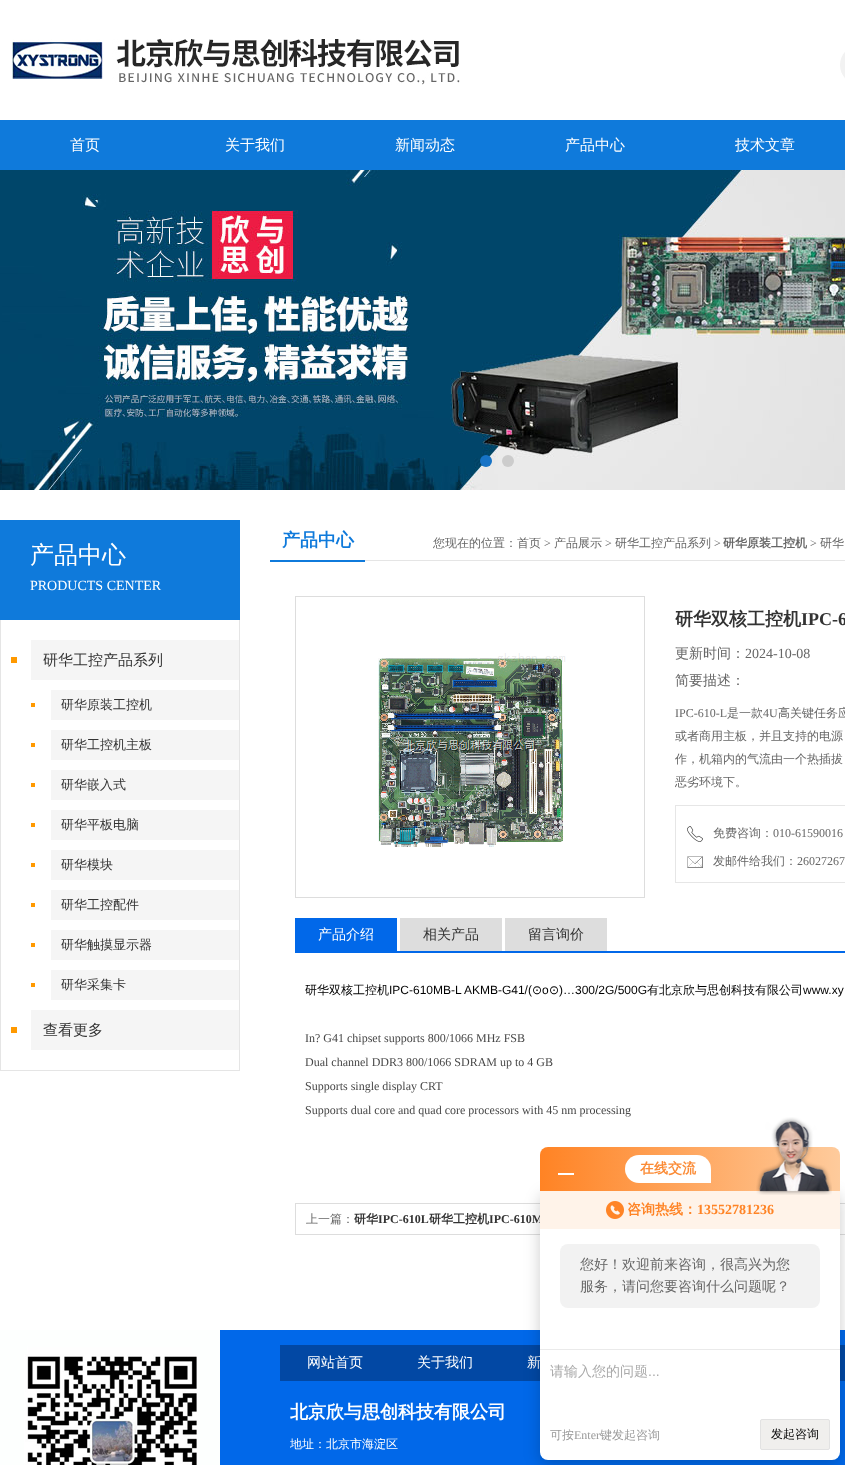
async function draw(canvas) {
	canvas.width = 845;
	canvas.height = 1465;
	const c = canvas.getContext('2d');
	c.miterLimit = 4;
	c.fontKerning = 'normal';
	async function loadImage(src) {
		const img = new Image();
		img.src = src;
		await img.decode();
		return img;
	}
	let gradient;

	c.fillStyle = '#fff';
	c.fillRect(0, 0, 845, 1465);
	c.drawImage(await loadImage('img1.png'), 12, 38, 448, 47);
	c.fillStyle = '#f2f2f2';
	c.beginPath();
	c.moveTo(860, 45);
	c.lineTo(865, 45);
	c.lineTo(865, 85);
	c.lineTo(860, 85);
	c.bezierCurveTo(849, 85, 840, 76, 840, 65);
	c.bezierCurveTo(840, 54, 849, 45, 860, 45);
	c.closePath();
	c.fill();
	c.fillStyle = '#0f7adb';
	c.fillRect(0, 120, 845, 50);
	c.font = '500 15px WenQuanYi Zen Hei';
	c.fillStyle = '#fff';
	for (const [text, x, y] of [
		['首页', 70, 150],
		['关于我们', 225, 150],
		['新闻动态', 395, 150],
		['产品中心', 565, 150],
		['技术文章', 735, 150],
	]) {
		c.fillText(text, x, y);
	}
	c.drawImage(await loadImage('img2.png'), 0, 170, 845, 320);
	c.fillStyle = '#1773c6';
	c.beginPath();
	c.arc(486, 461, 6, 0, 2 * Math.PI);
	c.fill();
	c.fillStyle = '#ccc';
	c.beginPath();
	c.arc(508, 461, 6, 0, 2 * Math.PI);
	c.fill();
	c.fillStyle = '#0f7adb';
	c.fillRect(0, 520, 240, 100);
	c.font = '500 24px WenQuanYi Zen Hei';
	c.fillStyle = '#fff';
	c.fillText('产品中心', 30, 563);
	c.font = '14px Liberation Serif';
	c.fillText('PRODUCTS CENTER', 30, 590);
	for (const [x, y, w, h, color] of [
		[239, 620, 1, 451, '#e5e5e5'],
		[0, 1070, 240, 1, '#e5e5e5'],
		[0, 620, 1, 451, '#e5e5e5'],
		[11, 657, 6, 6, '#f90'],
		[31, 640, 208, 40, '#f5f5f5'],
	]) {
		c.fillStyle = color;
		c.fillRect(x, y, w, h);
	}
	c.font = '500 15px WenQuanYi Zen Hei';
	c.fillStyle = '#333';
	c.fillText('研华工控产品系列', 43, 665);
	c.fillStyle = '#f90';
	c.fillRect(31, 703, 4, 4);
	c.fillStyle = '#f5f5f5';
	c.fillRect(51, 690, 188, 30);
	c.font = '500 13px WenQuanYi Zen Hei';
	c.fillStyle = '#333';
	c.fillText('研华原装工控机', 61, 709);
	c.fillStyle = '#f90';
	c.fillRect(31, 743, 4, 4);
	c.fillStyle = '#f5f5f5';
	c.fillRect(51, 730, 188, 30);
	c.fillStyle = '#333';
	c.fillText('研华工控机主板', 61, 749);
	c.fillStyle = '#f90';
	c.fillRect(31, 783, 4, 4);
	c.fillStyle = '#f5f5f5';
	c.fillRect(51, 770, 188, 30);
	c.fillStyle = '#333';
	c.fillText('研华嵌入式', 61, 789);
	c.fillStyle = '#f90';
	c.fillRect(31, 823, 4, 4);
	c.fillStyle = '#f5f5f5';
	c.fillRect(51, 810, 188, 30);
	c.fillStyle = '#333';
	c.fillText('研华平板电脑', 61, 829);
	c.fillStyle = '#f90';
	c.fillRect(31, 863, 4, 4);
	c.fillStyle = '#f5f5f5';
	c.fillRect(51, 850, 188, 30);
	c.fillStyle = '#333';
	c.fillText('研华模块', 61, 869);
	c.fillStyle = '#f90';
	c.fillRect(31, 903, 4, 4);
	c.fillStyle = '#f5f5f5';
	c.fillRect(51, 890, 188, 30);
	c.fillStyle = '#333';
	c.fillText('研华工控配件', 61, 909);
	c.fillStyle = '#f90';
	c.fillRect(31, 943, 4, 4);
	c.fillStyle = '#f5f5f5';
	c.fillRect(51, 930, 188, 30);
	c.fillStyle = '#333';
	c.fillText('研华触摸显示器', 61, 949);
	c.fillStyle = '#f90';
	c.fillRect(31, 983, 4, 4);
	c.fillStyle = '#f5f5f5';
	c.fillRect(51, 970, 188, 30);
	c.fillStyle = '#333';
	c.fillText('研华采集卡', 61, 989);
	c.fillStyle = '#f90';
	c.fillRect(11, 1027, 6, 6);
	c.fillStyle = '#f5f5f5';
	c.fillRect(31, 1010, 208, 40);
	c.font = '500 15px WenQuanYi Zen Hei';
	c.fillStyle = '#333';
	c.fillText('查看更多', 43, 1035);
	c.fillStyle = '#e5e5e5';
	c.fillRect(365, 560, 480, 1);
	c.fillStyle = '#0f7adb';
	c.fillRect(270, 560, 95, 2);
	c.font = 'bold 18px WenQuanYi Zen Hei';
	c.fillText('产品中心', 282, 546);
	c.font = '500 12px WenQuanYi Zen Hei';
	c.fillStyle = '#666';
	c.fillText('您现在的位置：首页', 433, 547);
	c.font = '12px Liberation Serif';
	c.fillText('>', 544, 547);
	c.font = '500 12px WenQuanYi Zen Hei';
	c.fillText('产品展示', 554, 547);
	c.font = '12px Liberation Serif';
	c.fillText('>', 605, 547);
	c.font = '500 12px WenQuanYi Zen Hei';
	c.fillText('研华工控产品系列', 615, 547);
	c.font = '12px Liberation Serif';
	c.fillText('>', 714, 547);
	c.font = 'bold 12px WenQuanYi Zen Hei';
	c.fillText('研华原装工控机', 723, 547);
	c.font = '12px Liberation Serif';
	c.fillText('>', 810, 547);
	c.font = '500 12px WenQuanYi Zen Hei';
	c.fillText('研华', 820, 547);
	c.strokeStyle = '#ddd';
	c.strokeRect(295.5, 596.5, 349, 301);
	c.drawImage(await loadImage('img3.png'), 378, 653, 188, 194);
	c.font = 'bold 18px WenQuanYi Zen Hei';
	c.fillStyle = '#333';
	c.fillText('研华双核工控机', 675, 625);
	c.font = 'bold 18px Liberation Serif';
	c.fillText('IPC-6', 801, 625);
	c.font = '500 14px WenQuanYi Zen Hei';
	c.fillStyle = '#666';
	c.fillText('更新时间：', 675, 658);
	c.font = '14px Liberation Serif';
	c.fillText('2024-10-08', 745, 658);
	c.font = '500 14px WenQuanYi Zen Hei';
	c.fillText('简要描述：', 675, 685);
	c.font = '12px Liberation Serif';
	c.fillText('IPC-610-L', 675, 717);
	c.font = '500 12px WenQuanYi Zen Hei';
	c.fillText('是一款', 727, 717);
	c.font = '12px Liberation Serif';
	c.fillText('4U', 763, 717);
	c.font = '500 12px WenQuanYi Zen Hei';
	for (const [text, x, y] of [
		['高关键任务应', 778, 717],
		['或者商用主板，并且支持的电源', 675, 740],
		['作，机箱内的气流由一个热插拔', 675, 763],
		['恶劣环境下。', 675, 786],
	]) {
		c.fillText(text, x, y);
	}
	c.strokeStyle = '#e6e6e6';
	c.strokeRect(675.5, 805.5, 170, 77);
	c.drawImage(await loadImage('img4.png'), 687, 826, 16, 16);
	c.fillText('免费咨询：', 713, 837);
	c.font = '12px Liberation Serif';
	c.fillText('010-61590016', 773, 837);
	c.drawImage(await loadImage('img5.png'), 687, 856, 16, 12);
	c.font = '500 12px WenQuanYi Zen Hei';
	c.fillText('发邮件给我们：', 713, 865);
	c.font = '12px Liberation Serif';
	c.fillText('26027267', 797, 865);
	c.fillStyle = '#0168e9';
	c.fillRect(295, 951, 550, 2);
	c.fillRect(295, 918, 102, 33);
	c.font = '500 14px WenQuanYi Zen Hei';
	c.fillStyle = '#fff';
	c.fillText('产品介绍', 318, 939);
	c.fillStyle = '#ddd';
	c.fillRect(400, 918, 102, 33);
	c.fillStyle = '#333';
	c.fillText('相关产品', 423, 939);
	c.fillStyle = '#ddd';
	c.fillRect(505, 918, 102, 33);
	c.fillStyle = '#333';
	c.fillText('留言询价', 528, 939);
	c.font = '500 12px WenQuanYi Zen Hei';
	c.fillStyle = '#000';
	c.fillText('研华双核工控机', 305, 994);
	c.font = '12px Liberation Sans';
	c.fillText('IPC-610MB-L AKMB-G41/(', 389, 994);
	c.font = '12px DejaVu Sans';
	c.fillText('⊙', 532, 994);
	c.font = '12px Liberation Sans';
	c.fillText('o', 542, 994);
	c.font = '12px DejaVu Sans';
	c.fillText('⊙', 549, 994);
	c.font = '12px Liberation Sans';
	c.fillText(')…300/2G/500G', 559, 994);
	c.font = '500 12px WenQuanYi Zen Hei';
	c.fillText('有北京欣与思创科技有限公司', 647, 994);
	c.font = '12px Liberation Sans';
	c.fillText('www.xy', 803, 994);
	c.font = '12px Liberation Serif';
	c.fillStyle = '#474747';
	for (const [text, x, y] of [
		['In? G41 chipset supports 800/1066 MHz FSB', 305, 1042],
		['Dual channel DDR3 800/1066 SDRAM up to 4 GB', 305, 1066],
		['Supports single display CRT', 305, 1090],
		['Supports dual core and quad core processors with 45 nm processing', 305, 1114],
	]) {
		c.fillText(text, x, y);
	}
	c.strokeStyle = '#ddd';
	c.strokeRect(295.5, 1203.5, 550, 31);
	c.font = '500 12px WenQuanYi Zen Hei';
	c.fillStyle = '#666';
	c.fillText('上一篇：', 306, 1223);
	c.font = 'bold 12px WenQuanYi Zen Hei';
	c.fillStyle = '#333';
	c.fillText('研华', 354, 1223);
	c.font = 'bold 12px Liberation Serif';
	c.fillText('IPC-610L', 378, 1223);
	c.font = 'bold 12px WenQuanYi Zen Hei';
	c.fillText('研华工控机', 429, 1223);
	c.font = 'bold 12px Liberation Serif';
	c.fillText('IPC-610M', 489, 1223);
	c.fillStyle = '#0168e9';
	c.fillRect(220, 1330, 625, 135);
	c.drawImage(await loadImage('img6.png'), 0, 1330, 220, 135);
	c.fillStyle = '#0248a4';
	c.fillRect(280, 1345, 565, 36);
	c.font = '500 14px WenQuanYi Zen Hei';
	c.fillStyle = '#fff';
	for (const [text, x, y] of [
		['网站首页', 307, 1367],
		['关于我们', 417, 1367],
		['新', 527, 1367],
	]) {
		c.fillText(text, x, y);
	}
	c.font = 'bold 18px WenQuanYi Zen Hei';
	c.fillText('北京欣与思创科技有限公司', 290, 1418);
	c.font = '500 12px WenQuanYi Zen Hei';
	c.fillText('地址：北京市海淀区', 290, 1448);
	c.fillStyle = '#00000033';
	c.filter = 'blur(8px)';
	c.beginPath();
	c.roundRect(540, 1195, 300, 269, 8);
	c.fill();
	c.filter = 'none';
	gradient = c.createLinearGradient(540, 1169, 840, 1169);
	gradient.addColorStop(0, '#ff8324');
	gradient.addColorStop(1, '#fecb9c');
	c.fillStyle = gradient;
	c.beginPath();
	c.roundRect(540, 1147, 300, 44, [8, 8, 0, 0]);
	c.fill();
	c.fillStyle = '#fff';
	c.fillRect(558, 1173, 16, 2);
	c.beginPath();
	c.roundRect(625, 1155, 86, 28, [14, 14, 0, 14]);
	c.fill();
	c.font = 'bold 14px WenQuanYi Zen Hei';
	c.fillStyle = '#fb8b36';
	c.fillText('在线交流', 640, 1173);
	c.fillStyle = '#fff';
	c.beginPath();
	c.roundRect(540, 1191, 300, 269, [0, 0, 8, 8]);
	c.fill();
	c.fillStyle = '#fff3e9';
	c.fillRect(540, 1191, 300, 38);
	c.drawImage(await loadImage('img7.png'), 756, 1117, 76, 78);
	c.drawImage(await loadImage('img8.png'), 606, 1201, 18, 18);
	c.fillStyle = '#ff8426';
	c.fillText('咨询热线：', 627, 1214);
	c.font = 'bold 14px Liberation Serif';
	c.fillText('13552781236', 697, 1214);
	c.fillStyle = '#f2f2f2';
	c.beginPath();
	c.roundRect(560, 1244, 260, 64, 8);
	c.fill();
	c.font = '500 14px WenQuanYi Zen Hei';
	c.fillStyle = '#666';
	c.fillText('您好！欢迎前来咨询，很高兴为您', 580, 1269);
	c.fillText('服务，请问您要咨询什么问题呢？', 580, 1291);
	c.fillStyle = '#eaeaea';
	c.fillRect(540, 1349, 300, 1);
	c.fillStyle = '#aaa';
	c.fillText('请输入您的问题', 550, 1376);
	c.font = '14px Liberation Sans';
	c.fillText('...', 648, 1376);
	c.font = '500 12px WenQuanYi Zen Hei';
	c.fillStyle = '#999';
	c.fillText('可按', 550, 1439);
	c.font = '12px Liberation Serif';
	c.fillText('Enter', 574, 1439);
	c.font = '500 12px WenQuanYi Zen Hei';
	c.fillText('键发起咨询', 600, 1439);
	c.fillStyle = '#f0efed';
	c.beginPath();
	c.roundRect(760.5, 1419.5, 69, 30, 1.5);
	c.fill();
	c.strokeStyle = '#e2e2e2';
	c.stroke();
	c.fillStyle = '#000';
	c.fillText('发起咨询', 771, 1438);
}

draw(document.querySelector('canvas'));
